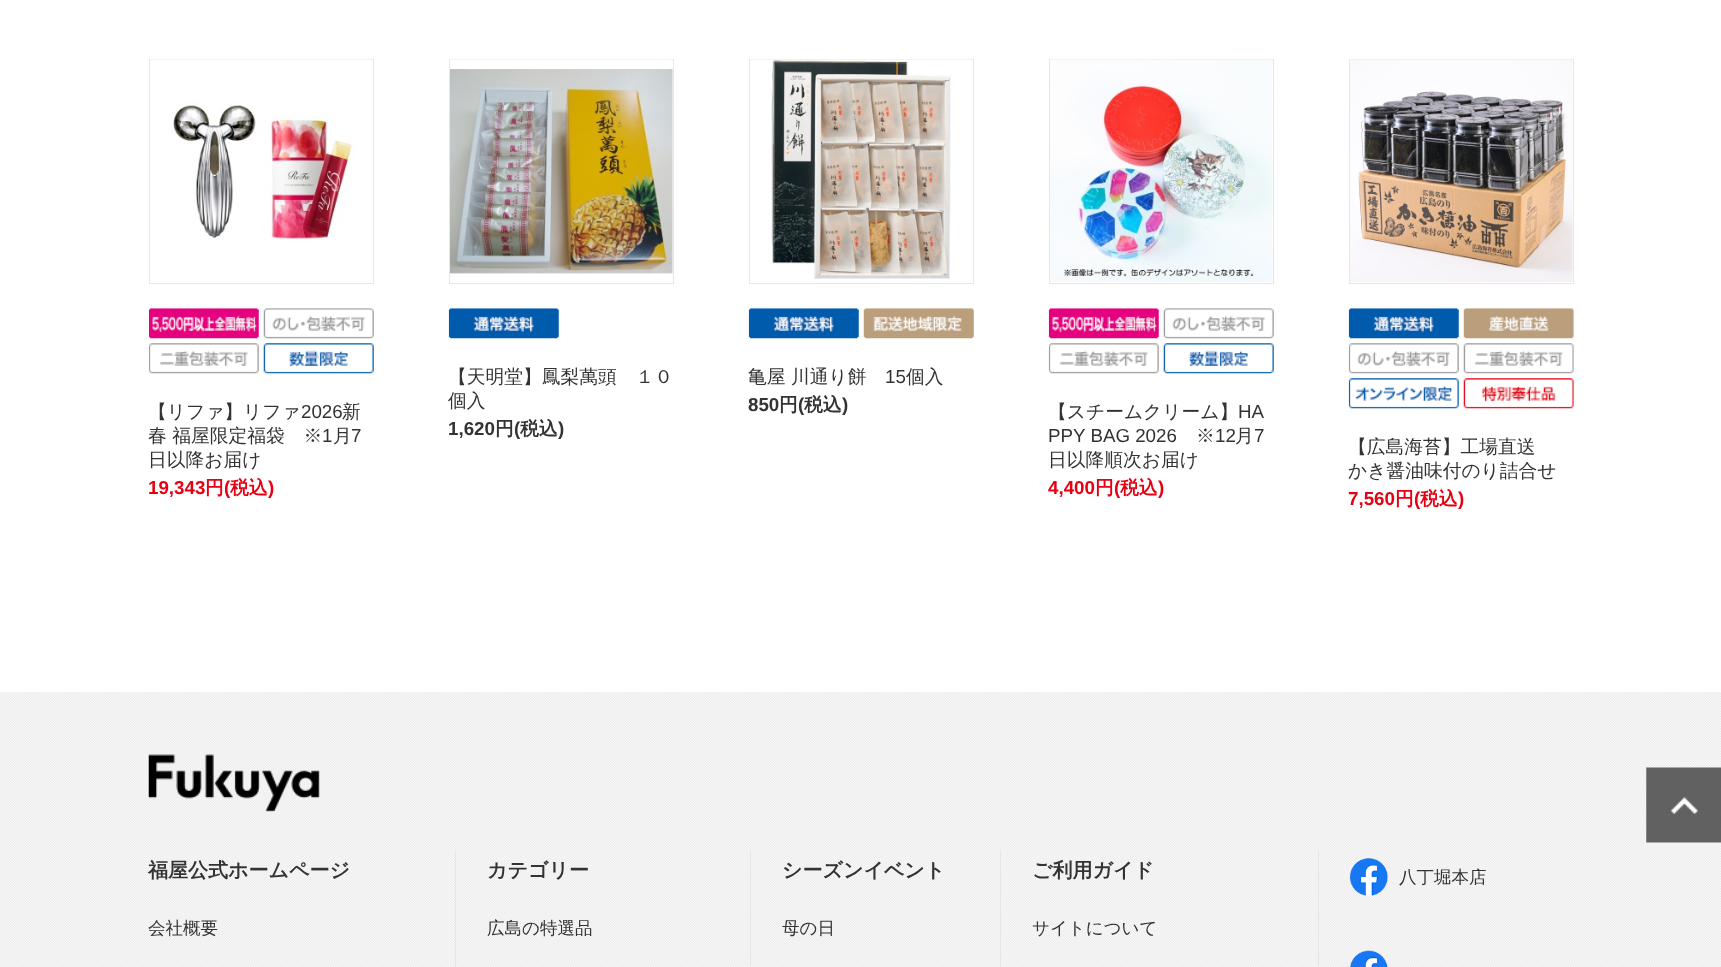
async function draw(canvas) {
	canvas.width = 1721;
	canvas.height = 967;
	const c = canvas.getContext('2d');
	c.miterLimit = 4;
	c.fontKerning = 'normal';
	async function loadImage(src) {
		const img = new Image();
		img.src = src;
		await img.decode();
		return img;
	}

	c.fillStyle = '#fff';
	c.fillRect(0, 0, 1721, 967);
	c.strokeStyle = '#e8e7e7';
	c.strokeRect(449.5, 59.5, 224, 224);
	c.drawImage(await loadImage('img1.png'), 450, 59, 223, 215);
	c.drawImage(await loadImage('img2.png'), 448, 308, 111, 31);
	c.font = '500 18.75px WenQuanYi Zen Hei';
	c.fillStyle = '#333';
	c.fillText('【天明堂】鳳梨萬頭　１０', 448, 383);
	c.fillText('個入', 448, 407);
	c.font = 'bold 18.75px Liberation Sans';
	c.fillText('1,620', 448, 435);
	c.font = 'bold 18.75px WenQuanYi Zen Hei';
	c.fillText('円', 495, 435);
	c.font = 'bold 18.75px Liberation Sans';
	c.fillText('(', 514, 435);
	c.font = 'bold 18.75px WenQuanYi Zen Hei';
	c.fillText('税込', 520, 435);
	c.font = 'bold 18.75px Liberation Sans';
	c.fillText(')', 558, 435);
	c.strokeRect(749.5, 59.5, 224, 224);
	c.drawImage(await loadImage('img3.png'), 750, 59, 223, 220);
	c.drawImage(await loadImage('img2.png'), 748, 308, 111, 31);
	c.drawImage(await loadImage('img4.png'), 863, 308, 111, 31);
	c.font = '500 18.75px WenQuanYi Zen Hei';
	c.fillText('亀屋 川通り餅', 748, 383);
	c.font = '18.75px Liberation Sans';
	c.fillText('15', 885, 383);
	c.font = '500 18.75px WenQuanYi Zen Hei';
	c.fillText('個入', 906, 383);
	c.font = 'bold 18.75px Liberation Sans';
	c.fillText('850', 748, 411);
	c.font = 'bold 18.75px WenQuanYi Zen Hei';
	c.fillText('円', 779, 411);
	c.font = 'bold 18.75px Liberation Sans';
	c.fillText('(', 798, 411);
	c.font = 'bold 18.75px WenQuanYi Zen Hei';
	c.fillText('税込', 804, 411);
	c.font = 'bold 18.75px Liberation Sans';
	c.fillText(')', 842, 411);
	c.strokeRect(149.5, 59.5, 224, 224);
	c.drawImage(await loadImage('img5.png'), 150, 59, 223, 182);
	c.drawImage(await loadImage('img6.png'), 149, 308, 110, 31);
	c.drawImage(await loadImage('img7.png'), 263, 308, 111, 31);
	c.drawImage(await loadImage('img8.png'), 149, 343, 110, 31);
	c.drawImage(await loadImage('img9.png'), 263, 343, 111, 31);
	c.font = '500 18.75px WenQuanYi Zen Hei';
	c.fillText('【リファ】リファ', 148, 418);
	c.font = '18.75px Liberation Sans';
	c.fillText('2026', 301, 418);
	c.font = '500 18.75px WenQuanYi Zen Hei';
	c.fillText('新', 342, 418);
	c.fillText('春 福屋限定福袋　※', 148, 442);
	c.font = '18.75px Liberation Sans';
	c.fillText('1', 322, 442);
	c.font = '500 18.75px WenQuanYi Zen Hei';
	c.fillText('月', 333, 442);
	c.font = '18.75px Liberation Sans';
	c.fillText('7', 351, 442);
	c.font = '500 18.75px WenQuanYi Zen Hei';
	c.fillText('日以降お届け', 148, 466);
	c.font = 'bold 18.75px Liberation Sans';
	c.fillStyle = '#e60012';
	c.fillText('19,343', 148, 494);
	c.font = 'bold 18.75px WenQuanYi Zen Hei';
	c.fillText('円', 205, 494);
	c.font = 'bold 18.75px Liberation Sans';
	c.fillText('(', 224, 494);
	c.font = 'bold 18.75px WenQuanYi Zen Hei';
	c.fillText('税込', 230, 494);
	c.font = 'bold 18.75px Liberation Sans';
	c.fillText(')', 268, 494);
	c.strokeRect(1049.5, 59.5, 224, 224);
	c.drawImage(await loadImage('img10.png'), 1050, 59, 223, 223);
	c.drawImage(await loadImage('img11.png'), 1048, 308, 111, 31);
	c.drawImage(await loadImage('img12.png'), 1163, 308, 111, 31);
	c.drawImage(await loadImage('img13.png'), 1048, 343, 111, 31);
	c.drawImage(await loadImage('img14.png'), 1163, 343, 111, 31);
	c.font = '500 18.75px WenQuanYi Zen Hei';
	c.fillStyle = '#333';
	c.fillText('【スチームクリーム】', 1048, 418);
	c.font = '18.75px Liberation Sans';
	c.fillText('HA', 1238, 418);
	c.fillText('PPY BAG 2026', 1048, 442);
	c.font = '500 18.75px WenQuanYi Zen Hei';
	c.fillText('※', 1196, 442);
	c.font = '18.75px Liberation Sans';
	c.fillText('12', 1215, 442);
	c.font = '500 18.75px WenQuanYi Zen Hei';
	c.fillText('月', 1235, 442);
	c.font = '18.75px Liberation Sans';
	c.fillText('7', 1254, 442);
	c.font = '500 18.75px WenQuanYi Zen Hei';
	c.fillText('日以降順次お届け', 1048, 466);
	c.font = 'bold 18.75px Liberation Sans';
	c.fillStyle = '#e60012';
	c.fillText('4,400', 1048, 494);
	c.font = 'bold 18.75px WenQuanYi Zen Hei';
	c.fillText('円', 1095, 494);
	c.font = 'bold 18.75px Liberation Sans';
	c.fillText('(', 1114, 494);
	c.font = 'bold 18.75px WenQuanYi Zen Hei';
	c.fillText('税込', 1120, 494);
	c.font = 'bold 18.75px Liberation Sans';
	c.fillText(')', 1158, 494);
	c.strokeRect(1349.5, 59.5, 224, 224);
	c.drawImage(await loadImage('img15.png'), 1350, 59, 223, 223);
	c.drawImage(await loadImage('img2.png'), 1348, 308, 111, 31);
	c.drawImage(await loadImage('img16.png'), 1463, 308, 111, 31);
	c.drawImage(await loadImage('img17.png'), 1348, 343, 111, 31);
	c.drawImage(await loadImage('img18.png'), 1463, 343, 111, 31);
	c.drawImage(await loadImage('img19.png'), 1348, 378, 111, 31);
	c.drawImage(await loadImage('img20.png'), 1463, 378, 111, 31);
	c.font = '500 18.75px WenQuanYi Zen Hei';
	c.fillStyle = '#333';
	c.fillText('【広島海苔】工場直送', 1348, 453);
	c.fillText('かき醤油味付のり詰合せ', 1348, 477);
	c.font = 'bold 18.75px Liberation Sans';
	c.fillStyle = '#e60012';
	c.fillText('7,560', 1348, 505);
	c.font = 'bold 18.75px WenQuanYi Zen Hei';
	c.fillText('円', 1395, 505);
	c.font = 'bold 18.75px Liberation Sans';
	c.fillText('(', 1414, 505);
	c.font = 'bold 18.75px WenQuanYi Zen Hei';
	c.fillText('税込', 1420, 505);
	c.font = 'bold 18.75px Liberation Sans';
	c.fillText(')', 1458, 505);
	c.drawImage(await loadImage('img22.png'), 0, 692, 1721, 275);
	c.drawImage(await loadImage('img21.png'), 1646, 767, 75, 76);
	c.drawImage(await loadImage('img23.png'), 148, 754, 172, 58);
	c.fillStyle = '#e6e6e6';
	c.fillRect(455, 850, 1, 117);
	c.font = 'bold 20px WenQuanYi Zen Hei';
	c.fillStyle = '#333';
	c.fillText('福屋公式ホームページ', 148, 877);
	c.font = '500 17.5px WenQuanYi Zen Hei';
	c.fillText('会社概要', 148, 934);
	c.fillStyle = '#e6e6e6';
	c.fillRect(750, 850, 1, 117);
	c.font = 'bold 20px WenQuanYi Zen Hei';
	c.fillStyle = '#333';
	c.fillText('カテゴリー', 487, 877);
	c.font = '500 17.5px WenQuanYi Zen Hei';
	c.fillText('広島の特選品', 487, 934);
	c.fillStyle = '#e6e6e6';
	c.fillRect(1000, 850, 1, 117);
	c.font = 'bold 20px WenQuanYi Zen Hei';
	c.fillStyle = '#333';
	c.fillText('シーズンイベント', 782, 877);
	c.font = '500 17.5px WenQuanYi Zen Hei';
	c.fillText('母の日', 782, 934);
	c.fillStyle = '#e6e6e6';
	c.fillRect(1318, 850, 1, 117);
	c.font = 'bold 20px WenQuanYi Zen Hei';
	c.fillStyle = '#333';
	c.fillText('ご利用ガイド', 1032, 877);
	c.font = '500 17.5px WenQuanYi Zen Hei';
	c.fillText('サイトについて', 1032, 934);
	c.drawImage(await loadImage('img24.png'), 1350, 858, 38, 38);
	c.fillText('八丁堀本店', 1399, 883);
	c.drawImage(await loadImage('img25.png'), 1350, 950, 38, 17);
}

draw(document.querySelector('canvas'));
